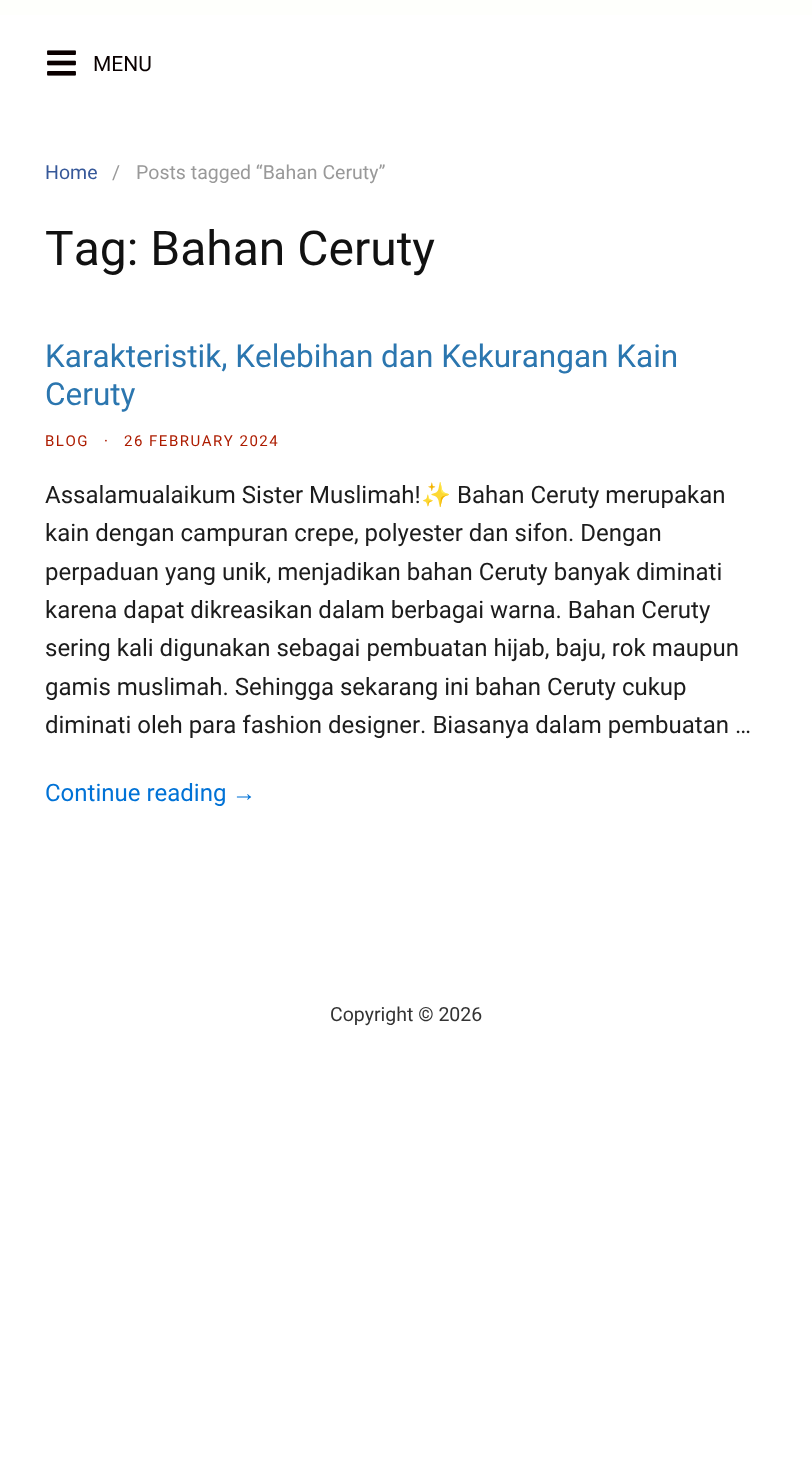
async function draw(canvas) {
	canvas.width = 812;
	canvas.height = 1482;
	const c = canvas.getContext('2d');
	c.miterLimit = 4;
	c.fontKerning = 'none';
	async function loadImage(src) {
		const img = new Image();
		img.src = src;
		await img.decode();
		return img;
	}

	c.fillStyle = '#fff';
	c.fillRect(0, 0, 812, 1482);
	c.fillStyle = '#fefffc';
	c.fillRect(0, 0, 812, 15);
	c.drawImage(await loadImage('img1.png'), 47, 50, 29, 26);
	c.font = '21px Roboto';
	c.fillStyle = '#0a0000';
	c.fillText('MENU', 93, 71);
	c.font = '19.5px Roboto';
	c.fillStyle = '#365899';
	c.fillText('Home', 45, 179);
	c.fillStyle = '#999';
	c.fillText('/', 112, 179);
	c.fillText('Posts tagged “Bahan Ceruty”', 136, 179);
	c.font = '48px Roboto';
	c.fillStyle = '#111';
	c.fillText('Tag: Bahan Ceruty', 45, 265);
	c.font = '31.5px Roboto';
	c.fillStyle = '#2b76af';
	c.fillText('Karakteristik, Kelebihan dan Kekurangan Kain', 45, 367);
	c.fillText('Ceruty', 45, 405);
	c.letterSpacing = '1.5px';
	c.font = '15px Roboto';
	c.fillStyle = '#ad1c00';
	for (const [text, x, y] of [
		['BLOG', 45, 446],
		['·', 104, 446],
		['26 FEBRUARY 2024', 124, 446],
	]) {
		c.fillText(text, x, y);
	}
	c.letterSpacing = '0px';
	c.font = '24px Roboto';
	c.fillStyle = '#1c1c1c';
	c.fillText('Assalamualaikum Sister Muslimah!', 45, 503);
	c.font = '24px Noto Color Emoji';
	c.fillText('✨', 421, 503);
	c.font = '24px Roboto';
	for (const [text, x, y] of [
		['Bahan Ceruty merupakan', 457, 503],
		['kain dengan campuran crepe, polyester dan sifon. Dengan', 45, 541],
		['perpaduan yang unik, menjadikan bahan Ceruty banyak diminati', 45, 580],
		['karena dapat dikreasikan dalam berbagai warna. Bahan Ceruty', 45, 618],
		['sering kali digunakan sebagai pembuatan hijab, baju, rok maupun', 45, 656],
		['gamis muslimah. Sehingga sekarang ini bahan Ceruty cukup', 45, 695],
		['diminati oleh para fashion designer. Biasanya dalam pembuatan …', 45, 733],
	]) {
		c.fillText(text, x, y);
	}
	c.fillStyle = '#0072d6';
	c.fillText('Continue reading', 45, 801);
	c.font = '24px Liberation Sans';
	c.fillText('→', 232, 801);
	c.font = '19.5px Roboto';
	c.fillStyle = '#333';
	c.fillText('Copyright © 2026', 330, 1021);
}

draw(document.querySelector('canvas'));
